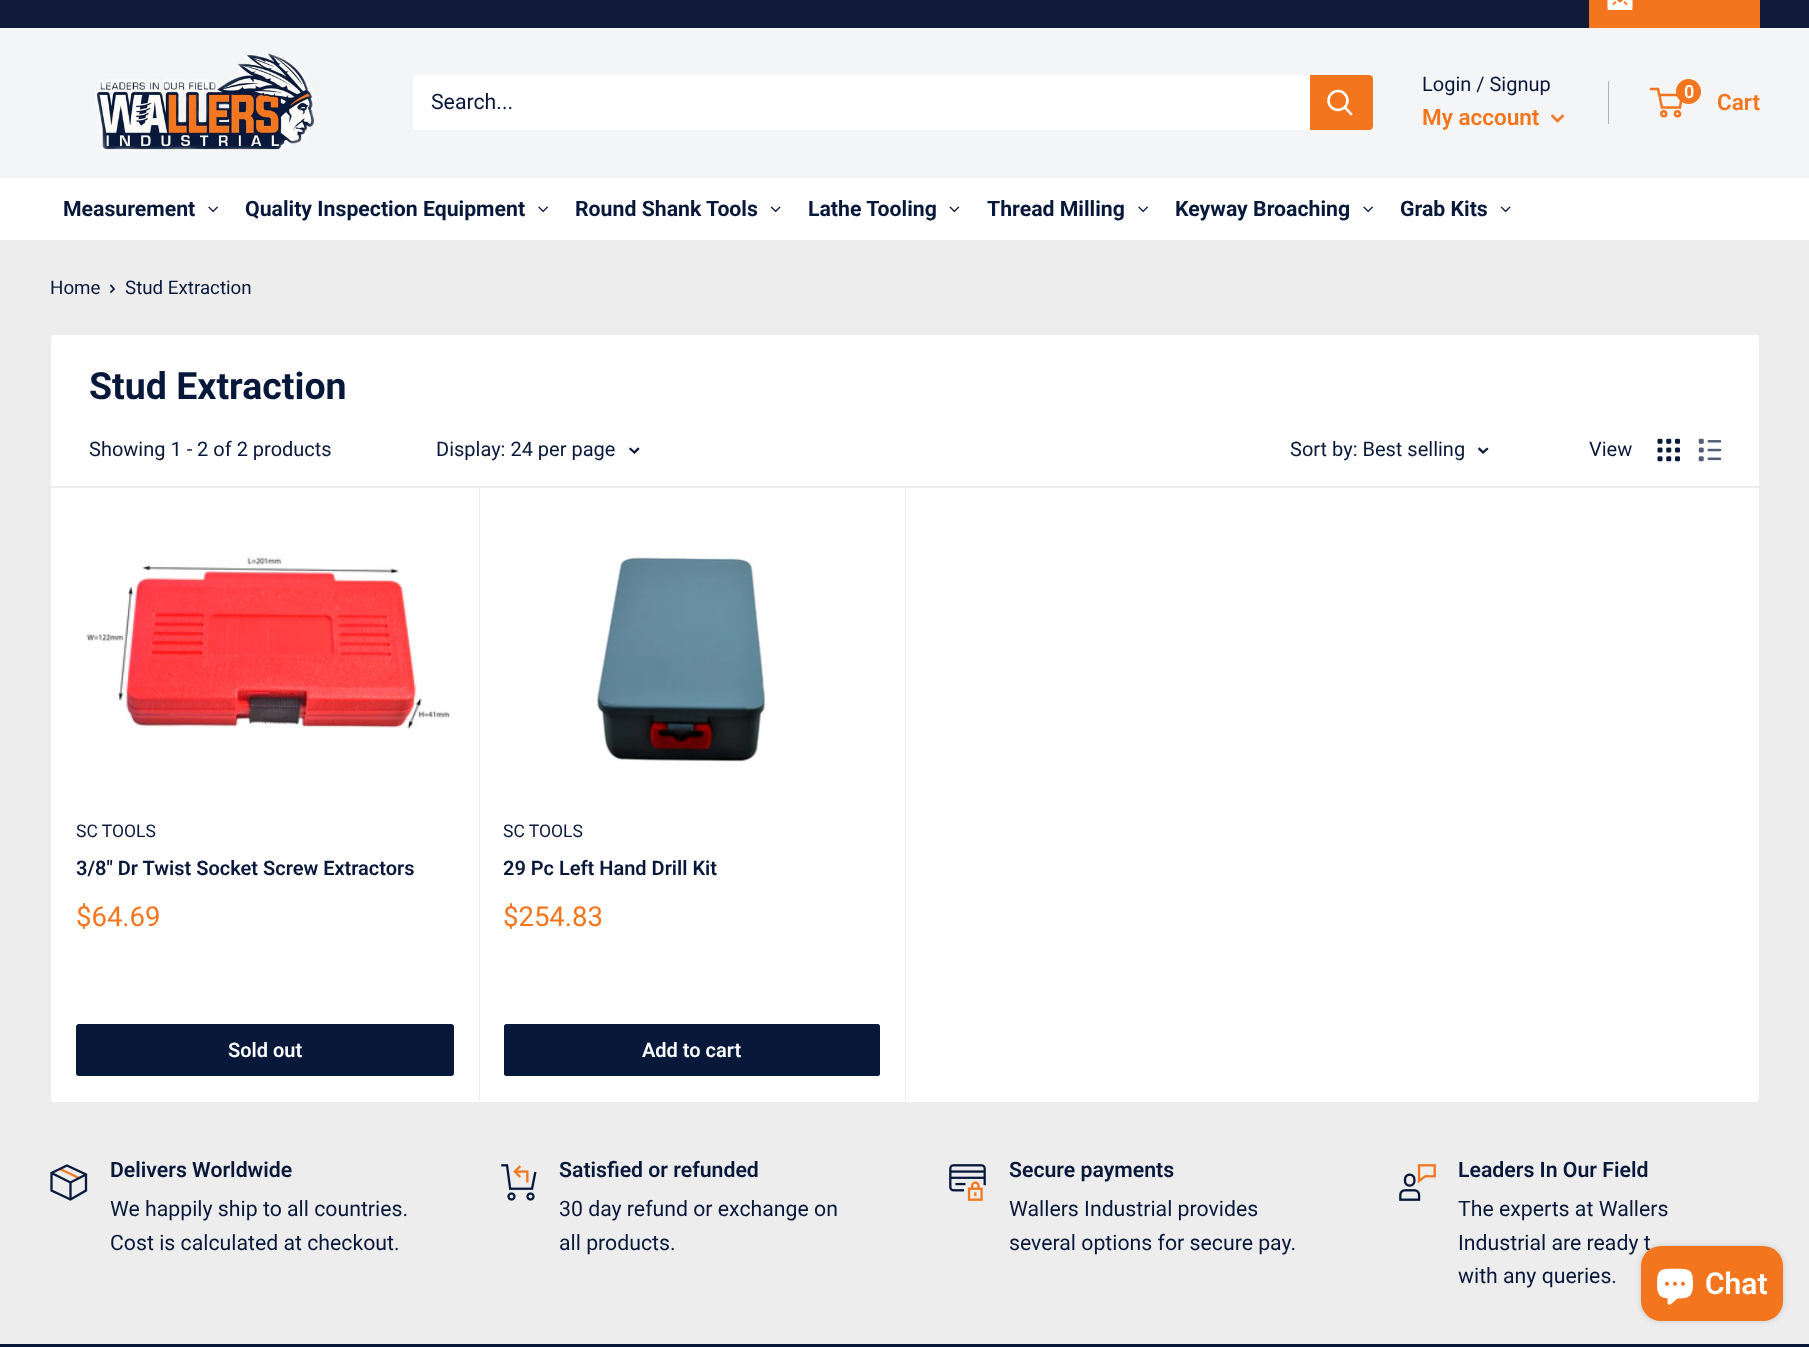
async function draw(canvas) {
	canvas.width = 1809;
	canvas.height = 1347;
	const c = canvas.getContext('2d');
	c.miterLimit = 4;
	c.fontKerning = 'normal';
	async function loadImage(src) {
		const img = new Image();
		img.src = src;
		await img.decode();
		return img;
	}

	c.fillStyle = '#ededed';
	c.fillRect(0, 0, 1809, 1347);
	for (const [x, y, w, h, color] of [
		[0, 0, 1809, 28, '#111a38'],
		[0, 26, 1809, 1, '#0e1939'],
		[1589, 0, 171, 28, '#f3761f'],
	]) {
		c.fillStyle = color;
		c.fillRect(x, y, w, h);
	}
	c.drawImage(await loadImage('img1.png'), 1607, 0, 26, 10);
	c.fillStyle = '#f3f5f6';
	c.fillRect(0, 28, 1809, 150);
	c.drawImage(await loadImage('img2.png'), 95, 52, 220, 100);
	c.fillStyle = '#fff';
	c.beginPath();
	c.roundRect(413, 75, 960, 55, 4);
	c.fill();
	c.font = '21.25px Roboto';
	c.fillStyle = '#08183b';
	c.fillText('Search...', 431, 109);
	c.fillStyle = '#f3761f';
	c.beginPath();
	c.roundRect(1310, 75, 63, 55, [0, 4, 4, 0]);
	c.fill();
	c.beginPath();
	c.moveTo(1351, 114);
	c.lineTo(1345, 107.5);
	c.strokeStyle = '#fff';
	c.lineWidth = 2.5;
	c.lineCap = 'square';
	c.stroke();
	c.beginPath();
	c.arc(1338, 100.5, 9.5, 0, 2 * Math.PI);
	c.stroke();
	c.font = '20px Roboto';
	c.fillStyle = '#08183b';
	c.fillText('Login / Signup', 1422, 91);
	c.fillStyle = '#acb3be';
	c.fillRect(1608, 81, 1, 43);
	c.font = '600 22.5px Roboto';
	c.fillStyle = '#f3761f';
	c.fillText('My account', 1422, 125);
	c.beginPath();
	c.moveTo(1562.5, 116);
	c.lineTo(1557.5, 121);
	c.lineTo(1552.5, 116);
	c.strokeStyle = '#f3761f';
	c.stroke();
	c.beginPath();
	c.arc(1663.8, 113.8, 2.5, 0, 2 * Math.PI);
	c.stroke();
	c.beginPath();
	c.arc(1677.5, 113.8, 2.5, 0, 2 * Math.PI);
	c.stroke();
	c.beginPath();
	c.moveTo(1659, 95);
	c.lineTo(1682, 95);
	c.lineTo(1680, 107.5);
	c.lineTo(1662, 107.5);
	c.lineTo(1658, 89);
	c.lineTo(1650, 89);
	c.lineCap = 'butt';
	c.stroke();
	c.beginPath();
	c.arc(1688.5, 91.5, 12.5, 0, 2 * Math.PI);
	c.fill();
	c.font = '600 18px Roboto';
	c.fillStyle = '#fff';
	c.fillText('0', 1684, 98);
	c.font = '600 22.5px Roboto';
	c.fillStyle = '#f3761f';
	c.fillText('Cart', 1717, 110);
	c.fillStyle = '#fff';
	c.fillRect(0, 178, 1809, 62);
	c.font = 'bold 21.25px Roboto';
	c.fillStyle = '#08183b';
	c.fillText('Measurement', 63, 216);
	c.drawImage(await loadImage('img3.png'), 208, 206, 10, 7);
	c.fillText('Quality Inspection Equipment', 245, 216);
	c.drawImage(await loadImage('img3.png'), 538, 206, 10, 7);
	c.fillText('Round Shank Tools', 575, 216);
	c.drawImage(await loadImage('img4.png'), 770, 206, 11, 7);
	c.fillText('Lathe Tooling', 808, 216);
	c.drawImage(await loadImage('img5.png'), 949, 206, 11, 7);
	c.fillText('Thread Milling', 987, 216);
	c.drawImage(await loadImage('img3.png'), 1138, 206, 10, 7);
	c.fillText('Keyway Broaching', 1175, 216);
	c.drawImage(await loadImage('img3.png'), 1363, 206, 10, 7);
	c.fillText('Grab Kits', 1400, 216);
	c.drawImage(await loadImage('img4.png'), 1500, 206, 11, 7);
	c.font = '18.75px Roboto';
	c.fillText('Home', 50, 294);
	c.beginPath();
	c.moveTo(111, 285.5);
	c.lineTo(114, 289);
	c.lineTo(111, 292);
	c.strokeStyle = '#08183b';
	c.lineWidth = 1.7;
	c.lineCap = 'square';
	c.stroke();
	c.fillText('Stud Extraction', 125, 294);
	c.fillStyle = '#fff';
	c.beginPath();
	c.roundRect(50.5, 334.5, 1709, 768, 3.5);
	c.fill();
	c.strokeStyle = '#ededed';
	c.lineWidth = 1;
	c.stroke();
	c.font = 'bold 37.5px Roboto';
	c.fillStyle = '#08183b';
	c.fillText('Stud Extraction', 89, 399);
	c.fillStyle = '#ededed';
	c.beginPath();
	c.moveTo(55, 486);
	c.lineTo(480, 486);
	c.lineTo(480, 1101);
	c.lineTo(479, 1101);
	c.lineTo(479, 486);
	c.lineTo(54, 486);
	c.closePath();
	c.fill();
	c.beginPath();
	c.moveTo(480, 486);
	c.lineTo(906, 486);
	c.lineTo(906, 1101);
	c.lineTo(905, 1101);
	c.lineTo(905, 486);
	c.closePath();
	c.fill();
	c.beginPath();
	c.moveTo(51, 415);
	c.lineTo(51, 488);
	c.lineTo(1759, 488);
	c.lineTo(1759, 415);
	c.lineTo(1759, 486);
	c.lineTo(51, 486);
	c.closePath();
	c.fill();
	c.font = '20px Roboto';
	c.fillStyle = '#08183b';
	c.fillText('Showing 1 - 2 of 2 products', 89, 456);
	c.fillText('Display: 24 per page', 436, 456);
	c.beginPath();
	c.moveTo(638, 449);
	c.lineTo(634.5, 452.5);
	c.lineTo(630.5, 449);
	c.strokeStyle = '#08183b';
	c.lineWidth = 2.3;
	c.stroke();
	c.fillText('Sort by: Best selling', 1290, 456);
	c.beginPath();
	c.moveTo(1487, 449);
	c.lineTo(1483, 452.5);
	c.lineTo(1479.5, 449);
	c.stroke();
	c.fillText('View', 1589, 456);
	c.drawImage(await loadImage('img6.png'), 1657, 438, 23, 24);
	c.drawImage(await loadImage('img7.png'), 1698, 438, 24, 24);
	c.drawImage(await loadImage('img8.png'), 86, 554, 367, 175);
	c.font = '17.5px Roboto';
	c.fillText('SC TOOLS', 76, 837);
	c.font = '600 20px Roboto';
	c.fillText('3/8" Dr Twist Socket Screw Extractors', 76, 875);
	c.font = '27.5px Roboto';
	c.fillStyle = '#f3761f';
	c.fillText('$64.69', 76, 926);
	c.fillStyle = '#08183b';
	c.beginPath();
	c.roundRect(76.5, 1024.5, 377, 51, 2);
	c.fill();
	c.lineWidth = 1;
	c.stroke();
	c.font = '600 20px Roboto';
	c.fillStyle = '#fff';
	c.fillText('Sold out', 228, 1057);
	c.drawImage(await loadImage('img9.png'), 597, 555, 169, 207);
	c.font = '17.5px Roboto';
	c.fillStyle = '#08183b';
	c.fillText('SC TOOLS', 503, 837);
	c.font = '600 20px Roboto';
	c.fillText('29 Pc Left Hand Drill Kit', 503, 875);
	c.font = '27.5px Roboto';
	c.fillStyle = '#f3761f';
	c.fillText('$254.83', 503, 926);
	c.fillStyle = '#08183b';
	c.beginPath();
	c.roundRect(504, 1024, 376, 52, 2.5);
	c.fill();
	c.font = '600 20px Roboto';
	c.fillStyle = '#fff';
	c.fillText('Add to cart', 642, 1057);
	c.beginPath();
	c.moveTo(60, 1169);
	c.lineTo(79, 1178);
	c.strokeStyle = '#f3761f';
	c.lineWidth = 2.3;
	c.lineCap = 'butt';
	c.stroke();
	c.beginPath();
	c.moveTo(86, 1174.5);
	c.lineTo(70.5, 1182.5);
	c.lineTo(51.5, 1173);
	c.moveTo(70.5, 1182.5);
	c.lineTo(70.5, 1199.5);
	c.strokeStyle = '#08183b';
	c.stroke();
	c.beginPath();
	c.moveTo(86, 1174.5);
	c.lineTo(86, 1190.5);
	c.lineTo(70.5, 1199.5);
	c.lineTo(51.5, 1190.5);
	c.lineTo(51.5, 1173);
	c.lineTo(67, 1165.5);
	c.closePath();
	c.lineCap = 'square';
	c.stroke();
	c.font = '600 21.25px Roboto';
	c.fillStyle = '#08183b';
	c.fillText('Delivers Worldwide', 110, 1177);
	c.font = '21.25px Roboto';
	c.fillText('We happily ship to all countries.', 110, 1216);
	c.fillText('Cost is calculated at checkout.', 110, 1250);
	c.drawImage(await loadImage('img10.png'), 501, 1164, 36, 37);
	c.font = '600 21.25px Roboto';
	c.fillText('Satisfied or refunded', 559, 1177);
	c.font = '21.25px Roboto';
	c.fillText('30 day refund or exchange on', 559, 1216);
	c.fillText('all products.', 559, 1250);
	c.drawImage(await loadImage('img11.png'), 949, 1164, 37, 37);
	c.font = '600 21.25px Roboto';
	c.fillText('Secure payments', 1009, 1177);
	c.font = '21.25px Roboto';
	c.fillText('Wallers Industrial provides', 1009, 1216);
	c.fillText('several options for secure pay.', 1009, 1250);
	c.drawImage(await loadImage('img12.png'), 1399, 1164, 37, 37);
	c.font = '600 21.25px Roboto';
	c.fillText('Leaders In Our Field', 1458, 1177);
	c.font = '21.25px Roboto';
	for (const [text, x, y] of [
		['The experts at Wallers', 1458, 1216],
		['Industrial are ready t', 1458, 1250],
		['with any queries.', 1458, 1283],
	]) {
		c.fillText(text, x, y);
	}
	c.fillStyle = '#00000026';
	c.filter = 'blur(3px)';
	c.beginPath();
	c.roundRect(1641, 1246, 142, 75, 20);
	c.fill();
	c.filter = 'none';
	c.fillStyle = '#f3761f';
	c.beginPath();
	c.roundRect(1641, 1246, 142, 75, 20);
	c.fill();
	c.drawImage(await loadImage('img13.png'), 1657, 1268, 36, 37);
	c.font = '600 30px Roboto';
	c.fillStyle = '#fff';
	c.fillText('Chat', 1705, 1294);
	c.fillStyle = '#08183b';
	c.fillRect(0, 1344, 1809, 3);
}

draw(document.querySelector('canvas'));
